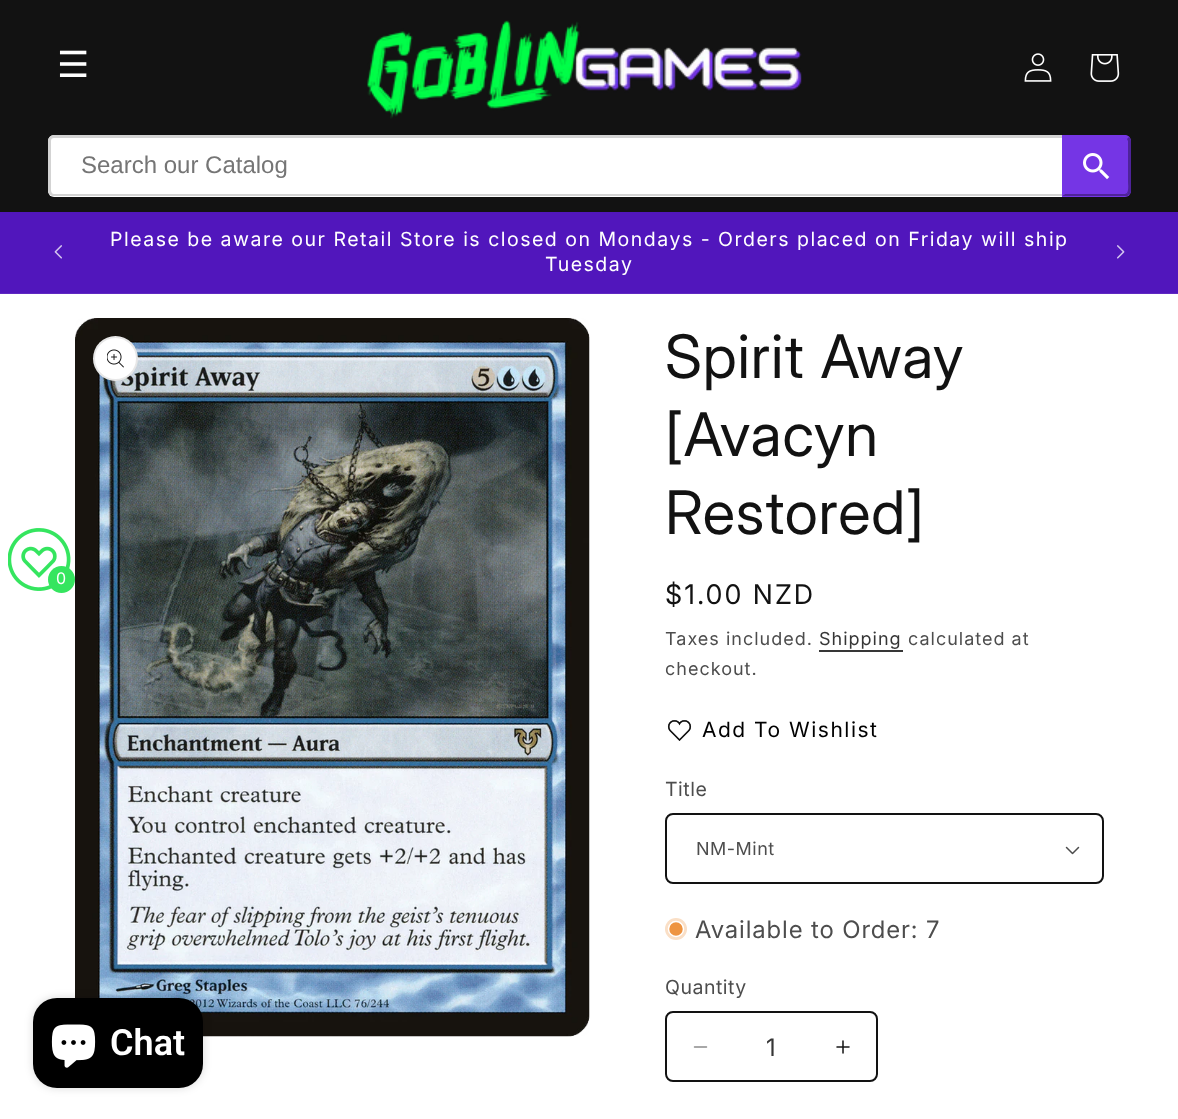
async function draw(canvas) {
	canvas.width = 1178;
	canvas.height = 1119;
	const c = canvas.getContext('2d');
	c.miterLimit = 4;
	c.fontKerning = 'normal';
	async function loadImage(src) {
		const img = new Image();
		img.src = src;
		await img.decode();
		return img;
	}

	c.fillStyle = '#fff';
	c.fillRect(0, 0, 1178, 1119);
	c.fillStyle = '#121212';
	c.fillRect(0, 0, 1178, 212);
	c.font = '36px DejaVu Sans';
	c.fillStyle = '#fff';
	c.fillText('☰', 57, 77);
	c.drawImage(await loadImage('img1.png'), 367, 20, 435, 99);
	c.drawImage(await loadImage('img2.png'), 1024, 53, 28, 29);
	c.drawImage(await loadImage('img3.png'), 1090, 54, 30, 28);
	c.beginPath();
	c.roundRect(48, 135, 1014, 62, [6, 0, 0, 6]);
	c.fill();
	c.fillStyle = '#d3d3d3';
	c.beginPath();
	c.moveTo(54, 135);
	c.lineTo(1062, 135);
	c.lineTo(1062, 196);
	c.lineTo(54, 196);
	c.bezierCurveTo(51, 196, 48, 194, 48, 190);
	c.lineTo(48, 141);
	c.bezierCurveTo(48, 138, 51, 135, 54, 135);
	c.closePath();
	c.moveTo(54, 138);
	c.lineTo(1062, 138);
	c.lineTo(1062, 194);
	c.lineTo(54, 194);
	c.bezierCurveTo(52, 194, 51, 192, 51, 190);
	c.lineTo(51, 141);
	c.bezierCurveTo(51, 139, 52, 138, 54, 138);
	c.closePath();
	c.fill('evenodd');
	c.font = '24px Liberation Sans';
	c.fillStyle = '#757575';
	c.fillText('Search our Catalog', 81, 173);
	c.fillStyle = '#7535e5';
	c.beginPath();
	c.roundRect(1062, 135, 69, 62, [0, 6, 6, 0]);
	c.fill();
	c.beginPath();
	c.moveTo(1062, 135);
	c.lineTo(1065, 138);
	c.bezierCurveTo(1072, 138, 1125, 137, 1127, 139);
	c.lineTo(1129, 137);
	c.bezierCurveTo(1128, 136, 1126, 135, 1125, 135);
	c.closePath();
	c.fill();
	c.fillStyle = '#4e2399';
	c.beginPath();
	c.moveTo(1131, 190);
	c.lineTo(1131, 141);
	c.bezierCurveTo(1131, 140, 1130, 138, 1129, 137);
	c.lineTo(1127, 139);
	c.lineTo(1128, 141);
	c.lineTo(1128, 182);
	c.bezierCurveTo(1128, 183, 1129, 190, 1127, 193);
	c.lineTo(1129, 195);
	c.bezierCurveTo(1130, 194, 1131, 192, 1131, 190);
	c.closePath();
	c.fill();
	c.beginPath();
	c.moveTo(1129, 195);
	c.bezierCurveTo(1128, 196, 1126, 196, 1125, 196);
	c.lineTo(1062, 196);
	c.lineTo(1065, 194);
	c.lineTo(1125, 194);
	c.lineTo(1127, 193);
	c.closePath();
	c.fill();
	c.fillStyle = '#7535e5';
	c.beginPath();
	c.moveTo(1065, 138);
	c.lineTo(1062, 135);
	c.lineTo(1062, 196);
	c.lineTo(1065, 194);
	c.closePath();
	c.fill();
	c.drawImage(await loadImage('img4.png'), 1083, 153, 27, 27);
	c.fillStyle = '#5116bc';
	c.fillRect(0, 212, 1178, 81);
	c.fillStyle = '#5f29c1';
	c.fillRect(0, 293, 1178, 1);
	c.drawImage(await loadImage('img5.png'), 54, 245, 8, 14);
	c.letterSpacing = '1.5px';
	c.font = '19.5px Inter';
	c.fillStyle = '#fff';
	c.fillText('Please be aware our Retail Store is closed on Mondays - Orders placed on Friday will ship', 110, 246);
	c.fillText('Tuesday', 545, 271);
	c.drawImage(await loadImage('img6.png'), 1117, 245, 8, 14);
	c.drawImage(await loadImage('img7.png'), 8, 528, 63, 63);
	c.fillStyle = '#35e55f';
	c.beginPath();
	c.arc(61.5, 579.5, 13.5, 0, 2 * Math.PI);
	c.fill();
	c.letterSpacing = '0.9px';
	c.font = '16px Inter';
	c.fillStyle = '#fff';
	c.fillText('0', 56, 584);
	c.drawImage(await loadImage('img8.png'), 75, 318, 515, 719);
	c.beginPath();
	c.arc(115.5, 358.5, 22.5, 0, 2 * Math.PI);
	c.fill();
	c.beginPath();
	c.arc(115.5, 358.5, 21.5, 0, 2 * Math.PI);
	c.strokeStyle = '#1212121a';
	c.lineWidth = 2;
	c.stroke();
	c.drawImage(await loadImage('img9.png'), 107, 349, 17, 19);
	c.font = '60px "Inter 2"';
	c.fillStyle = '#121212';
	for (const [text, x, y] of [
		['Spirit Away', 665, 378],
		['[Avacyn', 665, 456],
		['Restored]', 665, 534],
	]) {
		c.fillText(text, x, y);
	}
	c.letterSpacing = '2px';
	c.font = '27px "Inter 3"';
	c.fillText('$1.00 NZD', 665, 604);
	c.letterSpacing = '1px';
	c.font = '18px Inter';
	c.fillStyle = '#4d4d4d';
	c.fillText('Taxes included.', 665, 645);
	c.fillStyle = '#363636';
	c.fillText('Shipping', 819, 645);
	c.fillRect(819, 650, 84, 2);
	c.fillStyle = '#4d4d4d';
	c.fillText('calculated at', 908, 645);
	c.fillText('checkout.', 665, 675);
	c.drawImage(await loadImage('img10.png'), 667, 720, 25, 21);
	c.letterSpacing = '1.5px';
	c.font = '21px Inter';
	c.fillStyle = '#000';
	c.fillText('Add To Wishlist', 702, 737);
	c.letterSpacing = '0.5px';
	c.font = '19.5px Inter';
	c.fillStyle = '#4d4d4d';
	c.fillText('Title', 665, 796);
	c.drawImage(await loadImage('img11.png'), 1065, 846, 15, 9);
	c.beginPath();
	c.roundRect(666, 814, 437, 69, 7);
	c.strokeStyle = '#121212';
	c.stroke();
	c.font = '18px Inter';
	c.fillText('NM-Mint', 696, 855);
	c.fillStyle = '#fadfc6';
	c.beginPath();
	c.arc(676, 929, 11, 0, 2 * Math.PI);
	c.fill();
	c.fillStyle = '#ee9441';
	c.beginPath();
	c.arc(676, 929, 7.5, 0, 2 * Math.PI);
	c.fill();
	c.strokeStyle = '#fff';
	c.lineWidth = 1.5;
	c.stroke();
	c.letterSpacing = '0.9px';
	c.font = '24px "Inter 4"';
	c.fillStyle = '#4d4d4d';
	c.fillText('Available to Order: 7', 695, 938);
	c.letterSpacing = '0.5px';
	c.font = '19.5px Inter';
	c.fillText('Quantity', 665, 994);
	c.drawImage(await loadImage('img12.png'), 693, 1046, 15, 2);
	c.drawImage(await loadImage('img13.png'), 836, 1040, 14, 14);
	c.beginPath();
	c.roundRect(666, 1012, 211, 69, 7);
	c.strokeStyle = '#121212';
	c.lineWidth = 2;
	c.stroke();
	c.letterSpacing = '0px';
	c.font = '24px "Inter 4"';
	c.fillStyle = '#363636';
	c.fillText('1', 766, 1056);
	c.fillStyle = '#00000026';
	c.filter = 'blur(4px)';
	c.beginPath();
	c.roundRect(33, 998, 170, 90, 24);
	c.fill();
	c.filter = 'none';
	c.fillStyle = '#000';
	c.beginPath();
	c.roundRect(33, 998, 170, 90, 24);
	c.fill();
	c.drawImage(await loadImage('img14.png'), 51, 1024, 45, 44);
	c.font = '600 36px Roboto';
	c.fillStyle = '#fff';
	c.fillText('Chat', 110, 1055);
}

draw(document.querySelector('canvas'));
